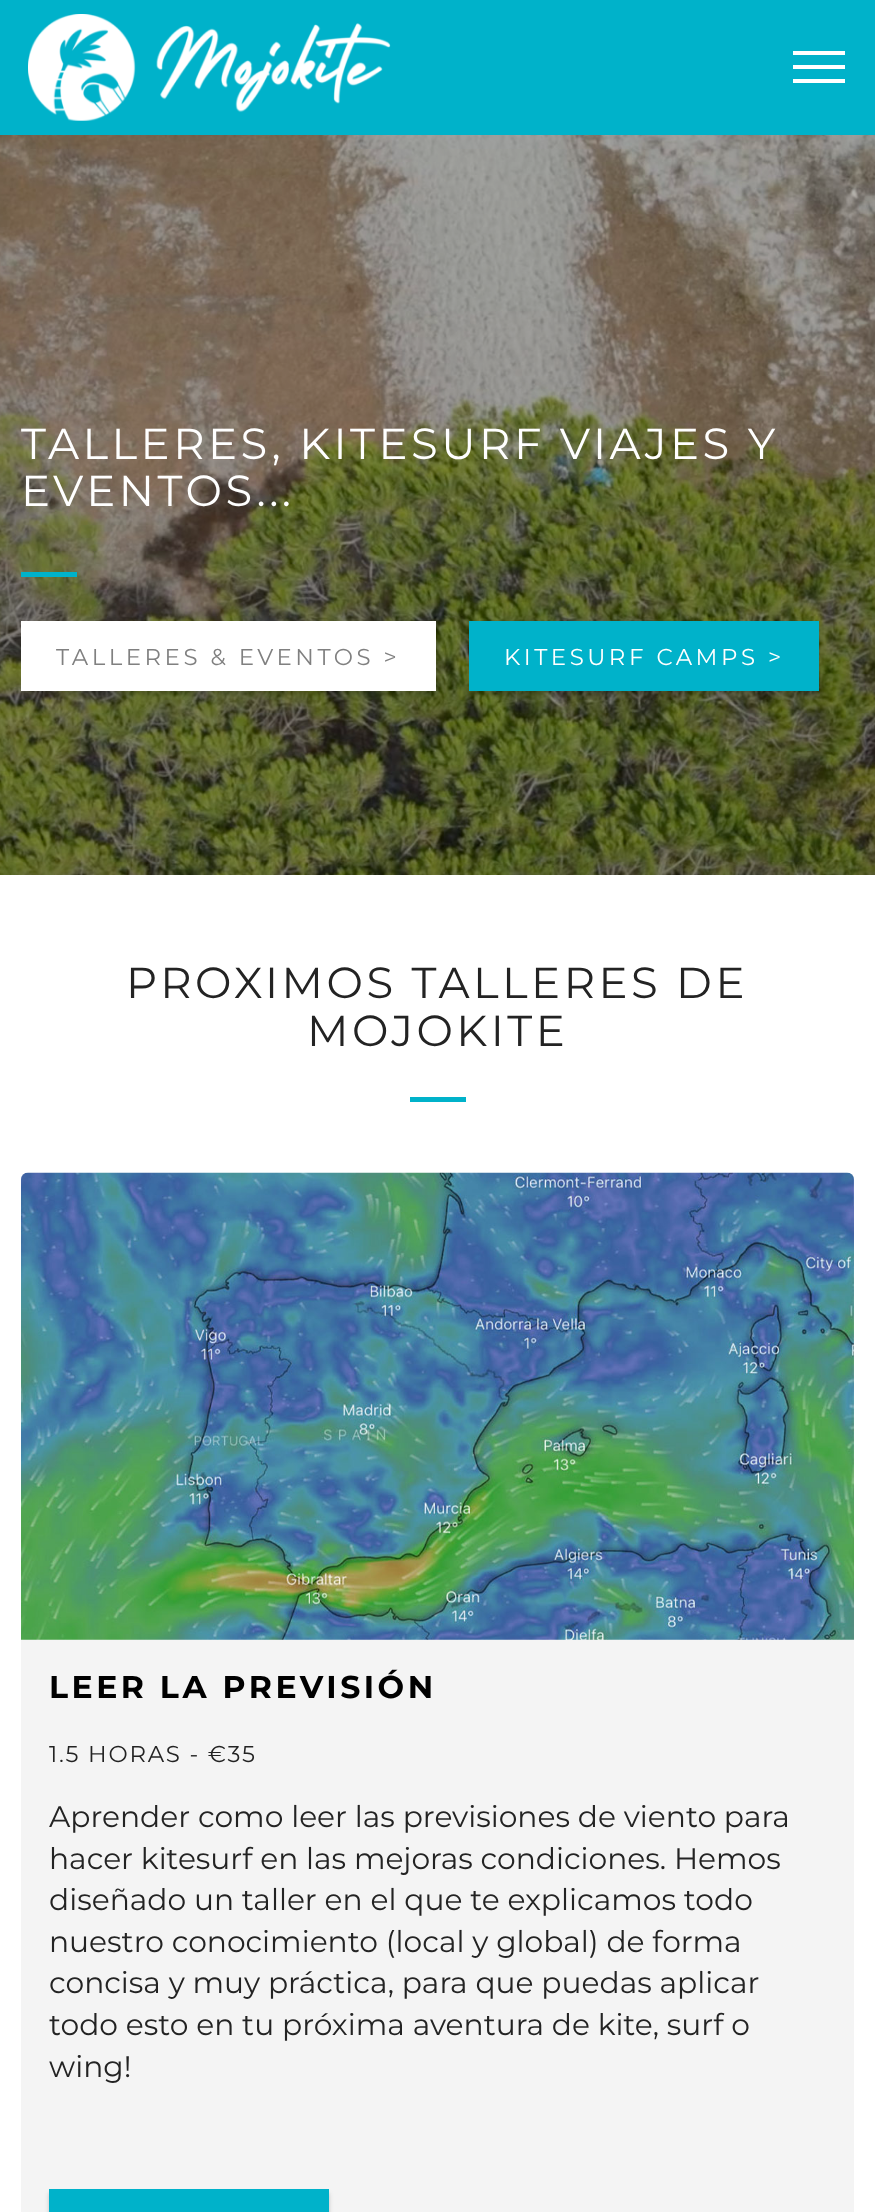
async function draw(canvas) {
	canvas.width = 875;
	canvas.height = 2212;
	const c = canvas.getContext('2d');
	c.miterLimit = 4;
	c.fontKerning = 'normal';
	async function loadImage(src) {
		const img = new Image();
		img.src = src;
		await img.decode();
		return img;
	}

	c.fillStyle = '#fff';
	c.fillRect(0, 0, 875, 2212);
	c.fillStyle = '#00b2ca';
	c.fillRect(0, 0, 875, 135);
	c.drawImage(await loadImage('img1.png'), 28, 14, 363, 107);
	for (const [x, y, w, h, color] of [
		[793, 51, 52, 4, '#fff'],
		[793, 65, 52, 4, '#fff'],
		[793, 79, 52, 4, '#fff'],
	]) {
		c.fillStyle = color;
		c.fillRect(x, y, w, h);
	}
	c.drawImage(await loadImage('img2.png'), 0, 135, 875, 740);
	c.letterSpacing = '3.5px';
	c.font = '43.4px Montserrat';
	c.fillText('TALLERES, KITESURF VIAJES Y', 21, 459);
	c.fillText('EVENTOS...', 21, 506);
	c.fillStyle = '#00b2ca';
	c.fillRect(21, 572, 56, 5);
	c.save();
	c.beginPath();
	c.rect(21, 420, 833, 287);
	c.clip();
	c.fillStyle = '#00000033';
	c.filter = 'blur(2px)';
	c.beginPath();
	c.rect(21, 625, 415, 70);
	c.fill();
	c.filter = 'none';
	c.restore();
	c.fillStyle = '#fff';
	c.fillRect(21, 621, 415, 70);
	c.font = '22.9px Montserrat';
	c.fillStyle = '#808080';
	c.fillText('TALLERES & EVENTOS >', 56, 665);
	c.fillStyle = '#00000033';
	c.filter = 'blur(2px)';
	c.beginPath();
	c.rect(469, 625, 350, 70);
	c.fill();
	c.filter = 'none';
	c.fillStyle = '#00b2ca';
	c.fillRect(469, 621, 350, 70);
	c.fillStyle = '#fff';
	c.fillText('KITESURF CAMPS >', 504, 665);
	c.font = '43.4px Montserrat';
	c.fillStyle = '#232323';
	c.fillText('PROXIMOS TALLERES DE', 126, 998);
	c.fillText('MOJOKITE', 307, 1046);
	c.fillStyle = '#00b2ca';
	c.fillRect(410, 1097, 56, 5);
	c.fillStyle = '#f4f4f4';
	c.beginPath();
	c.roundRect(21, 1173, 833, 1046, 7);
	c.fill();
	c.drawImage(await loadImage('img3.png'), 21, 1172, 833, 468);
	c.font = 'bold 31.5px Montserrat';
	c.fillStyle = '#000';
	c.fillText('LEER LA PREVISIÓN', 49, 1698);
	c.letterSpacing = '1.75px';
	c.font = '22.9px Montserrat';
	c.fillStyle = '#232323';
	c.fillText('1.5 HORAS - €35', 49, 1762);
	c.letterSpacing = '0px';
	c.font = '29.75px Montserrat';
	for (const [text, x, y] of [
		['Aprender como leer las previsiones de viento para', 49, 1827],
		['hacer kitesurf en las mejoras condiciones. Hemos', 49, 1869],
		['diseñado un taller en el que te explicamos todo', 49, 1910],
		['nuestro conocimiento (local y global) de forma', 49, 1952],
		['concisa y muy práctica, para que puedas aplicar', 49, 1993],
		['todo esto en tu próxima aventura de kite, surf o', 49, 2035],
		['wing!', 49, 2077],
	]) {
		c.fillText(text, x, y);
	}
	c.fillStyle = '#00000033';
	c.filter = 'blur(2px)';
	c.beginPath();
	c.rect(49, 2193, 280, 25);
	c.fill();
	c.filter = 'none';
	c.fillStyle = '#00b2ca';
	c.fillRect(49, 2189, 280, 23);
}

draw(document.querySelector('canvas'));
